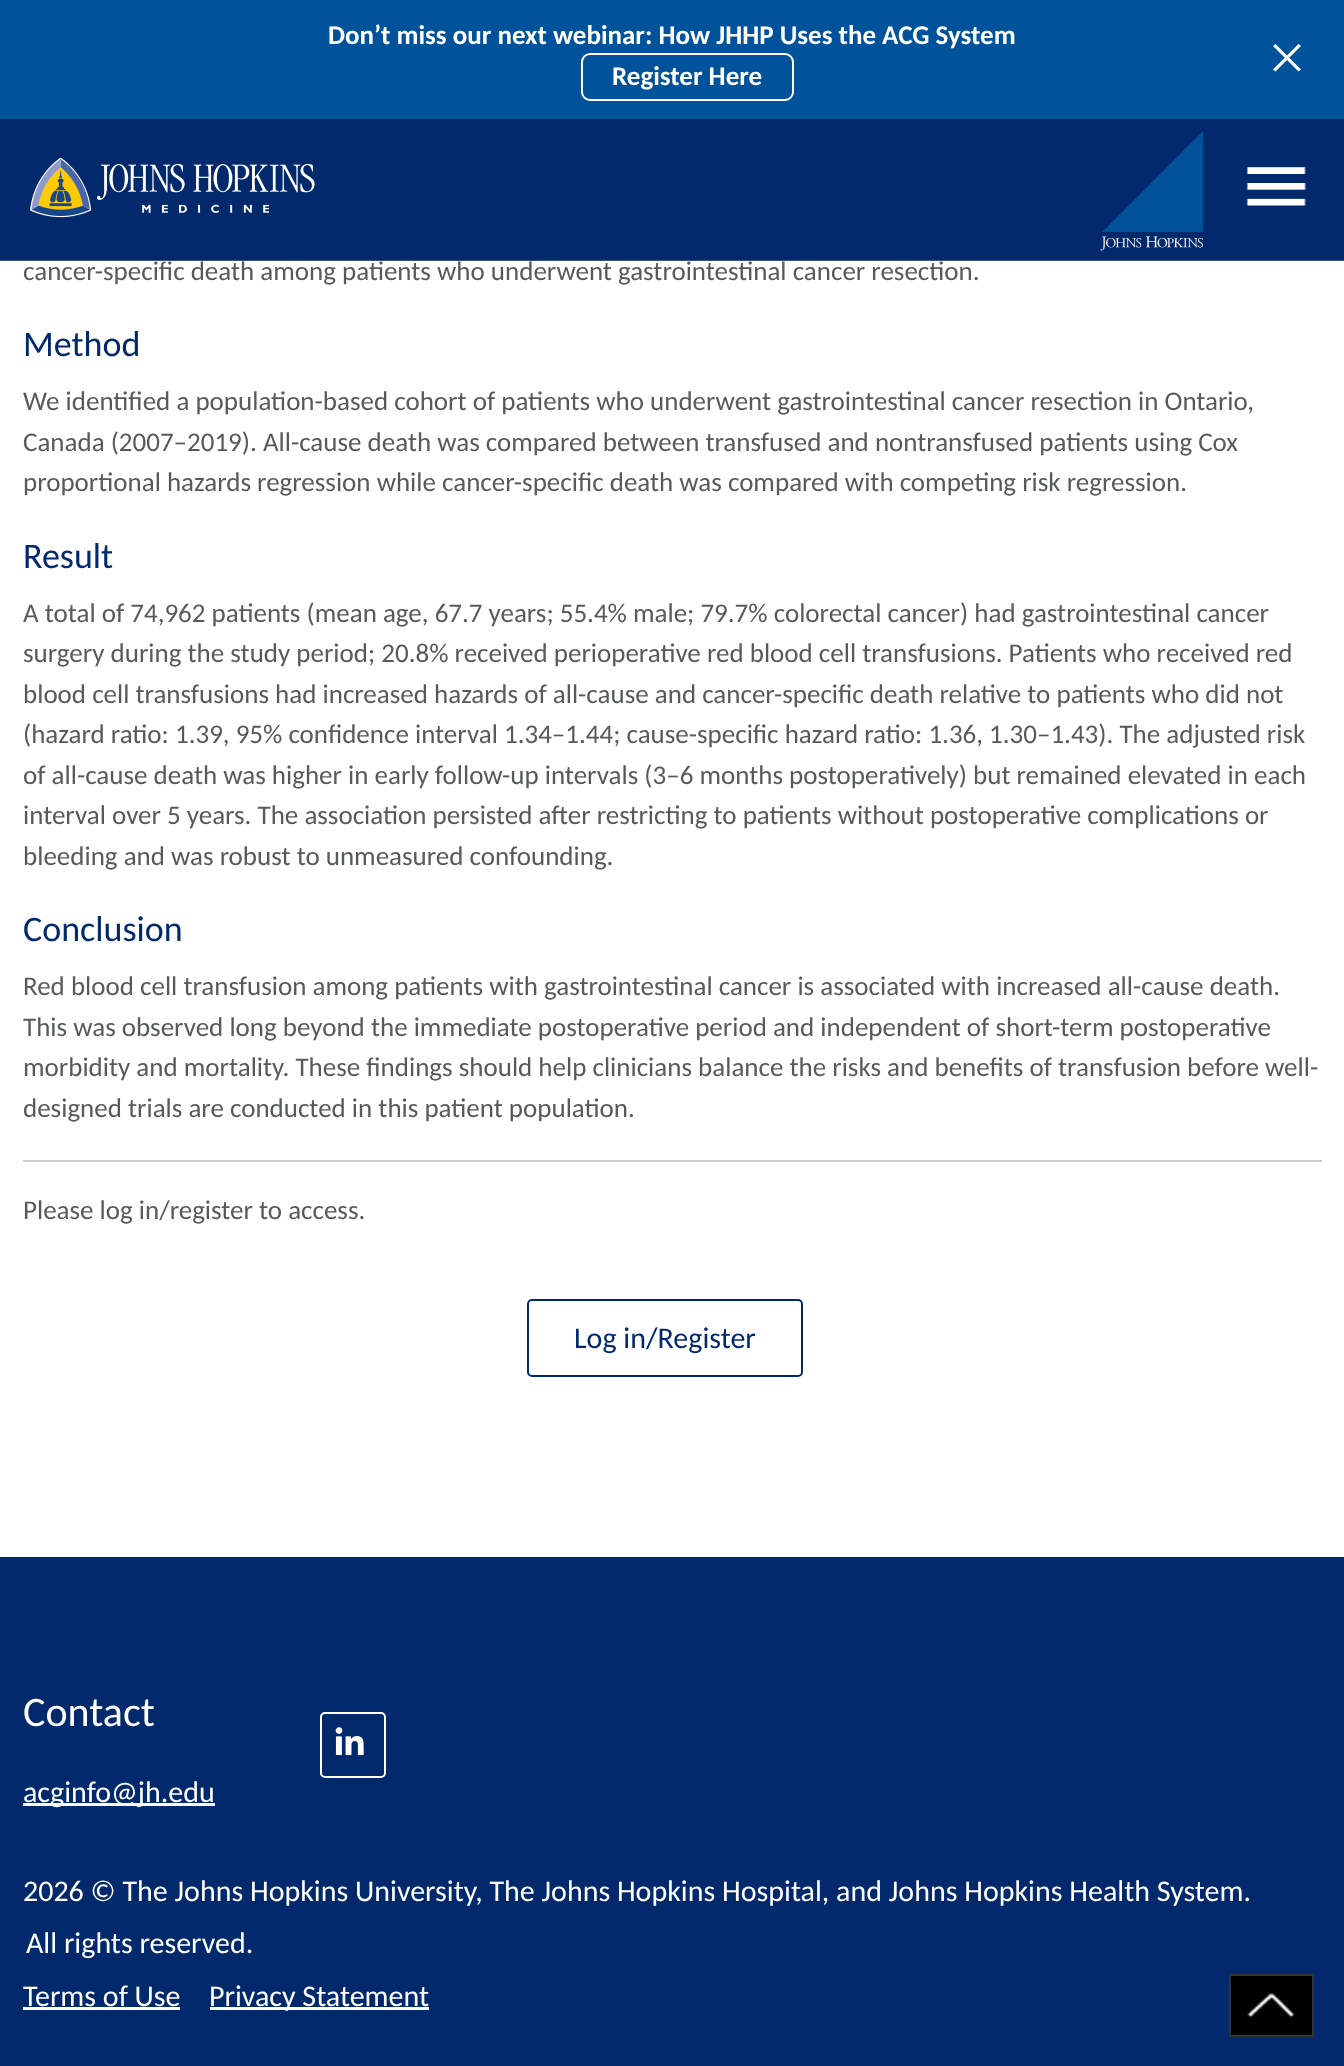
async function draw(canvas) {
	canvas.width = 1344;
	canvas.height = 2066;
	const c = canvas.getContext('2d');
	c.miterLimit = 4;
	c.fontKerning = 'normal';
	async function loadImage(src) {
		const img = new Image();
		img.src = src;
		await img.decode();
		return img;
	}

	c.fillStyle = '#03296d';
	c.fillRect(0, 0, 1344, 2066);
	c.fillStyle = '#00529b';
	c.fillRect(0, 0, 1344, 119);
	c.font = 'bold 27px Carlito';
	c.fillStyle = '#fff';
	c.fillText('Don’t miss our next webinar: How JHHP Uses the ACG System', 328, 44);
	c.beginPath();
	c.roundRect(582, 54, 211, 46, 8);
	c.strokeStyle = '#fff';
	c.lineWidth = 2;
	c.stroke();
	c.fillText('Register Here', 612, 85);
	c.beginPath();
	c.moveTo(1275.5, 44);
	c.lineTo(1301, 69.5);
	c.lineTo(1298.5, 71.5);
	c.lineTo(1273, 46);
	c.closePath();
	c.fill();
	c.beginPath();
	c.moveTo(1273, 69.5);
	c.lineTo(1298.5, 44);
	c.lineTo(1301, 46);
	c.lineTo(1275.5, 71.5);
	c.closePath();
	c.fill();
	c.fillRect(0, 261, 1344, 1296);
	c.font = '27px Carlito';
	c.fillStyle = '#58595c';
	c.fillText('cancer-specific death among patients who underwent gastrointestinal cancer resection.', 23, 280);
	c.fillStyle = '#ffffff33';
	c.fillRect(0, 260, 1344, 2);
	c.drawImage(await loadImage('img1.png'), 30, 158, 285, 60);
	c.drawImage(await loadImage('img2.png'), 1100, 131, 103, 120);
	c.drawImage(await loadImage('img3.png'), 1246, 167, 61, 39);
	c.font = '36px Carlito';
	c.fillStyle = '#03296d';
	c.fillText('Method', 23, 356);
	c.font = '27px Carlito';
	c.fillStyle = '#58595c';
	for (const [text, x, y] of [
		['We identified a population-based cohort of patients who underwent gastrointestinal cancer resection in Ontario,', 23, 410],
		['Canada (2007–2019). All-cause death was compared between transfused and nontransfused patients using Cox', 23, 451],
		['proportional hazards regression while cancer-specific death was compared with competing risk regression.', 23, 491],
	]) {
		c.fillText(text, x, y);
	}
	c.font = '36px Carlito';
	c.fillStyle = '#03296d';
	c.fillText('Result', 23, 568);
	c.font = '27px Carlito';
	c.fillStyle = '#58595c';
	for (const [text, x, y] of [
		['A total of 74,962 patients (mean age, 67.7 years; 55.4% male; 79.7% colorectal cancer) had gastrointestinal cancer', 23, 622],
		['surgery during the study period; 20.8% received perioperative red blood cell transfusions. Patients who received red', 23, 662],
		['blood cell transfusions had increased hazards of all-cause and cancer-specific death relative to patients who did not', 23, 703],
		['(hazard ratio: 1.39, 95% confidence interval 1.34–1.44; cause-specific hazard ratio: 1.36, 1.30–1.43). The adjusted risk', 23, 743],
		['of all-cause death was higher in early follow-up intervals (3–6 months postoperatively) but remained elevated in each', 23, 784],
		['interval over 5 years. The association persisted after restricting to patients without postoperative complications or', 23, 824],
		['bleeding and was robust to unmeasured confounding.', 23, 865],
	]) {
		c.fillText(text, x, y);
	}
	c.font = '36px Carlito';
	c.fillStyle = '#03296d';
	c.fillText('Conclusion', 23, 941);
	c.font = '27px Carlito';
	c.fillStyle = '#58595c';
	for (const [text, x, y] of [
		['Red blood cell transfusion among patients with gastrointestinal cancer is associated with increased all-cause death.', 23, 995],
		['This was observed long beyond the immediate postoperative period and independent of short-term postoperative', 23, 1036],
		['morbidity and mortality. These findings should help clinicians balance the risks and benefits of transfusion before well-', 23, 1076],
		['designed trials are conducted in this patient population.', 23, 1117],
	]) {
		c.fillText(text, x, y);
	}
	c.fillStyle = '#ccc';
	c.fillRect(23, 1160, 1299, 2);
	c.fillStyle = '#58595c';
	c.fillText('Please log in/register to access.', 23, 1219);
	c.beginPath();
	c.roundRect(528, 1300, 274, 76, 4);
	c.strokeStyle = '#03296d';
	c.stroke();
	c.font = '30px Carlito';
	c.fillStyle = '#03296d';
	c.fillText('Log in/Register', 574, 1348);
	c.font = '42px Carlito';
	c.fillStyle = '#fff';
	c.fillText('Contact', 23, 1726);
	c.fillRect(23, 1803, 192, 3);
	c.font = '30px Carlito';
	c.fillText('acginfo@jh.edu', 23, 1802);
	c.beginPath();
	c.roundRect(321, 1713, 64, 64, 4);
	c.strokeStyle = '#fff';
	c.stroke();
	c.drawImage(await loadImage('img4.png'), 335, 1727, 29, 29);
	for (const [text, x, y] of [
		['2026 © The Johns Hopkins University, The Johns Hopkins Hospital, and Johns Hopkins Health System.', 23, 1901],
		['All rights reserved.', 26, 1953],
		['Terms of Use', 23, 2006],
	]) {
		c.fillText(text, x, y);
	}
	c.fillRect(23, 2007, 157, 3);
	c.fillRect(210, 2007, 219, 3);
	c.fillText('Privacy Statement', 209, 2006);
	c.fillStyle = '#000';
	c.fillRect(1231, 1976, 81, 59);
	c.drawImage(await loadImage('img5.png'), 1247, 1993, 48, 25);
	c.strokeStyle = '#333';
	c.strokeRect(1230, 1975, 83, 61);
}

draw(document.querySelector('canvas'));
